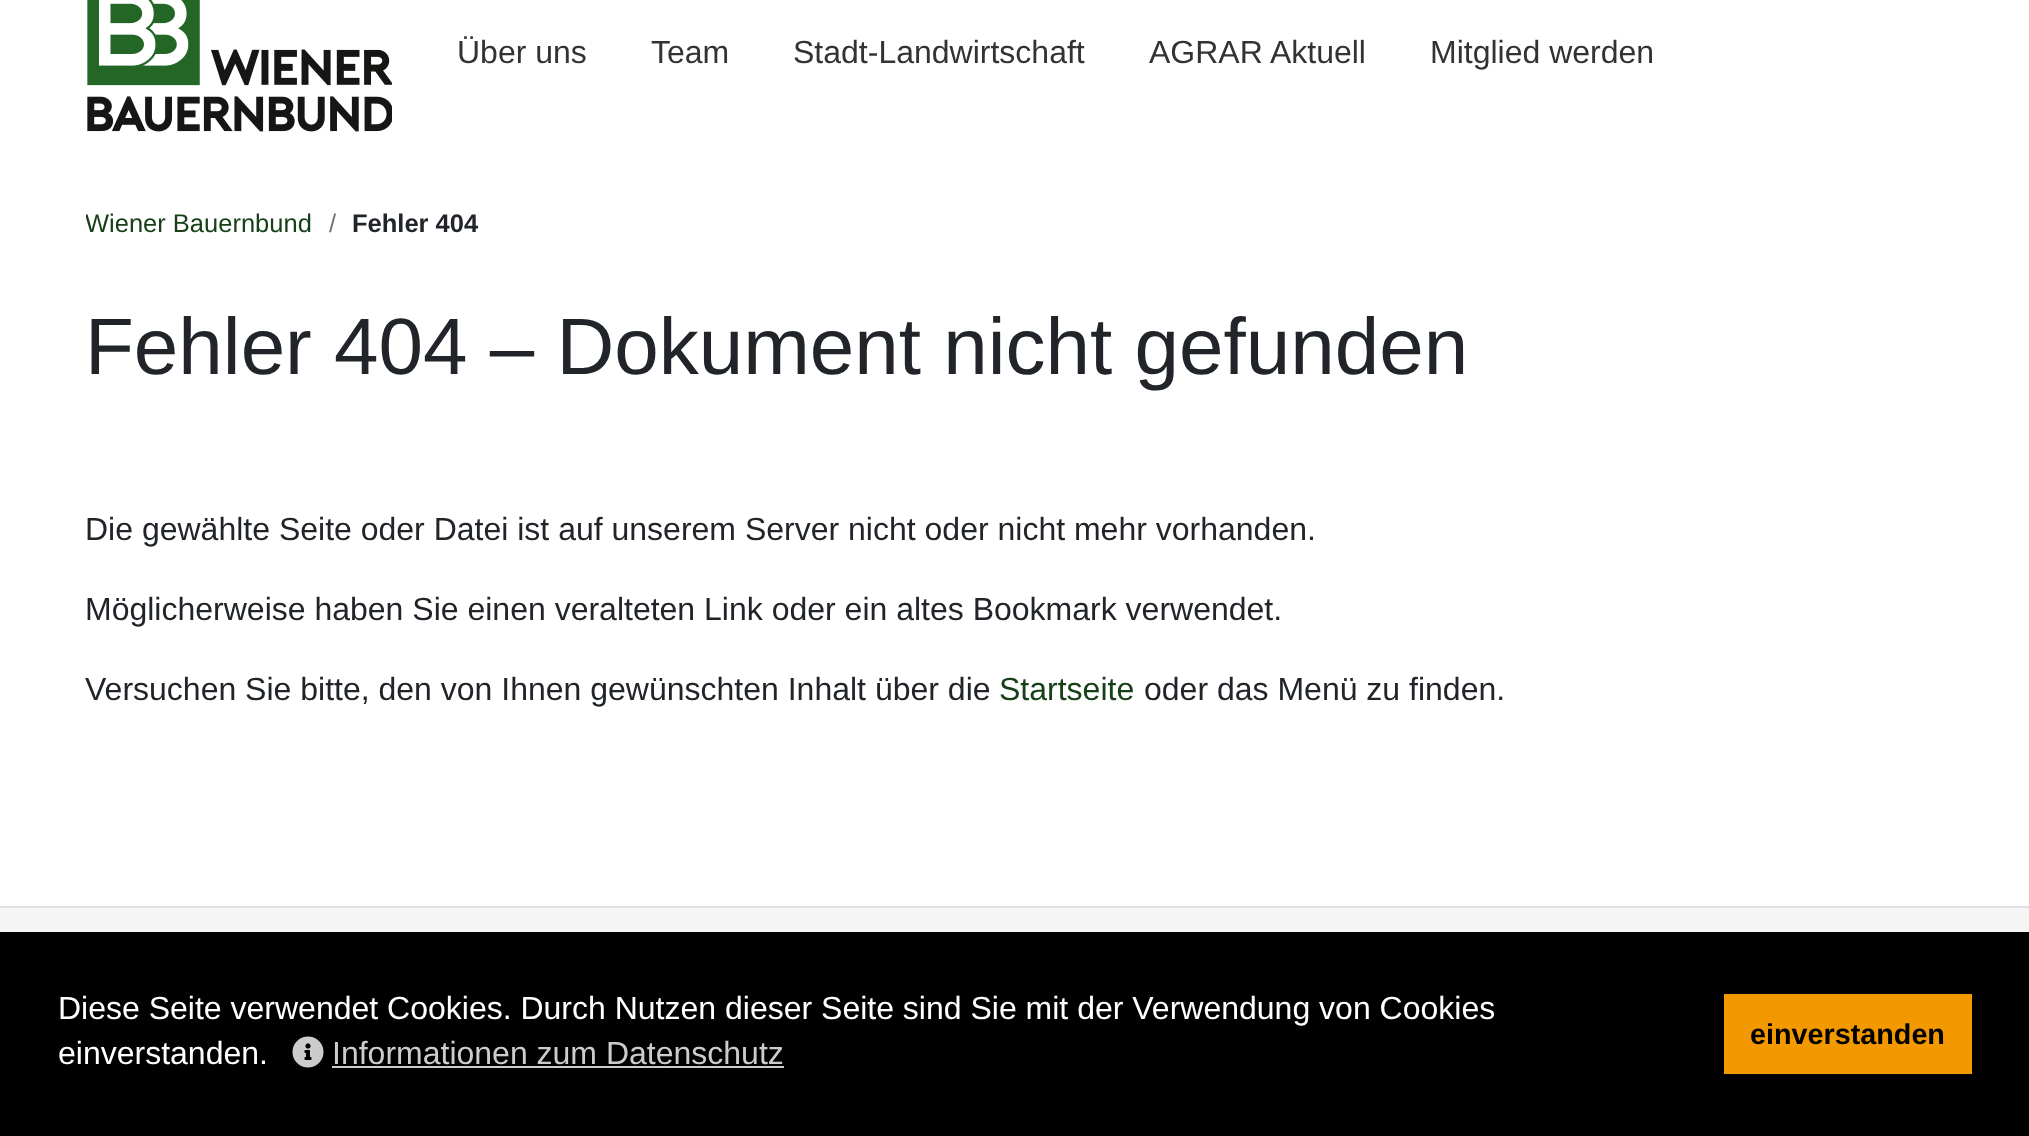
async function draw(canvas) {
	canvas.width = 2029;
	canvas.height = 1136;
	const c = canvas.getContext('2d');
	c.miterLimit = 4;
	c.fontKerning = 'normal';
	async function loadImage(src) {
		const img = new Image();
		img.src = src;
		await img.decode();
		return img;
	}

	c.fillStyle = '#fff';
	c.fillRect(0, 0, 2029, 1136);
	c.drawImage(await loadImage('img1.png'), 87, 0, 305, 132);
	c.font = '32px Liberation Sans';
	c.fillStyle = '#333';
	for (const [text, x, y] of [
		['Über uns', 457, 63],
		['Team', 651, 63],
		['Stadt-Landwirtschaft', 793, 63],
		['AGRAR Aktuell', 1149, 63],
		['Mitglied werden', 1430, 63],
	]) {
		c.fillText(text, x, y);
	}
	c.save();
	c.beginPath();
	c.rect(86, 204, 266, 38);
	c.clip();
	c.font = '25.5px Liberation Sans';
	c.fillStyle = '#174018';
	c.fillText('Wiener Bauernbund', 85, 232);
	c.restore();
	c.font = '25.5px Liberation Sans';
	c.fillStyle = '#6c757d';
	c.fillText('/', 329, 232);
	c.font = 'bold 25.5px Liberation Sans';
	c.fillStyle = '#212529';
	c.fillText('Fehler 404', 352, 232);
	c.font = '80px Liberation Sans';
	c.fillText('Fehler 404 – Dokument nicht gefunden', 85, 374);
	c.font = '32px Liberation Sans';
	for (const [text, x, y] of [
		['Die gewählte Seite oder Datei ist auf unserem Server nicht oder nicht mehr vorhanden.', 85, 540],
		['Möglicherweise haben Sie einen veralteten Link oder ein altes Bookmark verwendet.', 85, 620],
		['Versuchen Sie bitte, den von Ihnen gewünschten Inhalt über die', 85, 700],
	]) {
		c.fillText(text, x, y);
	}
	c.fillStyle = '#174018';
	c.fillText('Startseite', 999, 700);
	c.fillStyle = '#212529';
	c.fillText('oder das Menü zu finden.', 1144, 700);
	for (const [x, y, w, h, color] of [
		[0, 908, 2029, 24, '#f5f5f5'],
		[0, 906, 2029, 2, '#dee2e6'],
		[0, 932, 2029, 204, '#000'],
	]) {
		c.fillStyle = color;
		c.fillRect(x, y, w, h);
	}
	c.fillStyle = '#fff';
	c.fillText('Diese Seite verwendet Cookies. Durch Nutzen dieser Seite sind Sie mit der Verwendung von Cookies', 58, 1019);
	c.fillText('einverstanden.', 58, 1064);
	c.drawImage(await loadImage('img2.png'), 292, 1036, 32, 32);
	c.fillStyle = '#ccc';
	c.fillText('Informationen zum Datenschutz', 332, 1064);
	c.fillRect(332, 1066, 452, 2);
	c.fillStyle = '#f49800';
	c.fillRect(1724, 994, 248, 80);
	c.font = 'bold 28.75px Liberation Sans';
	c.fillStyle = '#000';
	c.fillText('einverstanden', 1750, 1044);
}

draw(document.querySelector('canvas'));
